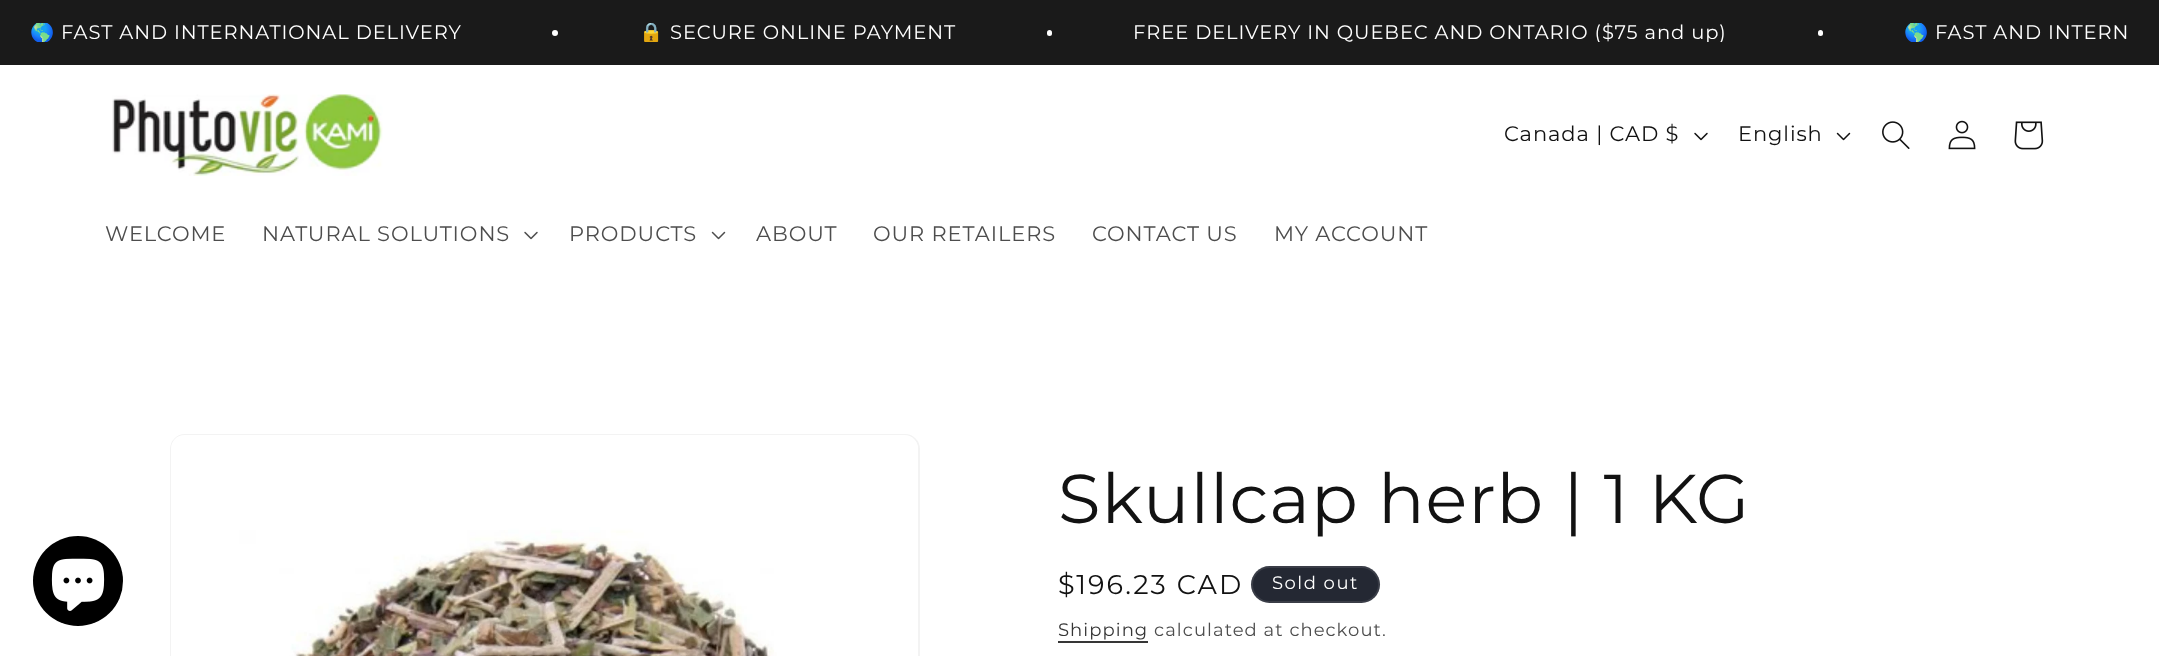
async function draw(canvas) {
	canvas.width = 2159;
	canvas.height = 656;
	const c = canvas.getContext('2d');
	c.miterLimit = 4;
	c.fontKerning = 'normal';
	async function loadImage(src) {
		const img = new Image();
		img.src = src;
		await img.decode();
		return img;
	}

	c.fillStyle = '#fff';
	c.fillRect(0, 0, 2159, 656);
	c.fillStyle = '#1a1a1a';
	c.fillRect(0, 0, 2159, 65);
	c.save();
	c.beginPath();
	c.rect(30, 23, 2100, 19);
	c.clip();
	c.letterSpacing = '0.9px';
	c.font = '19.5px Noto Color Emoji';
	c.fillStyle = '#fff';
	c.fillText('🌎', 30, 39);
	c.restore();
	c.letterSpacing = '0.9px';
	c.font = '19.5px Montserrat';
	c.fillStyle = '#fff';
	c.fillText('FAST AND INTERNATIONAL DELIVERY', 61, 39);
	c.beginPath();
	c.arc(555, 33, 3, 0, 2 * Math.PI);
	c.fill();
	c.save();
	c.beginPath();
	c.rect(30, 23, 2100, 19);
	c.clip();
	c.font = '19.5px Noto Color Emoji';
	c.fillText('🔒', 639, 39);
	c.restore();
	c.fillText('SECURE ONLINE PAYMENT', 670, 39);
	c.beginPath();
	c.roundRect(1047, 30, 5, 6, 2.5);
	c.fill();
	c.save();
	c.beginPath();
	c.rect(30, 23, 2100, 19);
	c.clip();
	c.fillText('FREE DELIVERY IN QUEBEC AND ONTARIO ($75 and up)', 1133, 39);
	c.restore();
	c.beginPath();
	c.roundRect(1818, 30, 5, 6, 2.5);
	c.fill();
	c.save();
	c.beginPath();
	c.rect(30, 23, 2100, 19);
	c.clip();
	c.font = '19.5px Noto Color Emoji';
	c.fillText('🌎', 1904, 39);
	c.restore();
	c.fillText('FAST AND INTERN', 1935, 39);
	c.drawImage(await loadImage('img1.png'), 112, 94, 271, 82);
	c.font = '21px Montserrat';
	c.fillStyle = '#121212';
	c.fillText('Canada | CAD $', 1504, 141);
	c.drawImage(await loadImage('img2.png'), 1694, 132, 14, 9);
	c.fillText('English', 1738, 141);
	c.drawImage(await loadImage('img3.png'), 1836, 132, 15, 9);
	c.drawImage(await loadImage('img4.png'), 1882, 121, 28, 28);
	c.drawImage(await loadImage('img5.png'), 1948, 120, 28, 30);
	c.drawImage(await loadImage('img6.png'), 2014, 121, 30, 29);
	c.fillStyle = '#4d4d4d';
	c.fillText('WELCOME', 105, 241);
	c.fillText('NATURAL SOLUTIONS', 262, 241);
	c.drawImage(await loadImage('img7.png'), 524, 231, 14, 9);
	c.fillText('PRODUCTS', 569, 241);
	c.drawImage(await loadImage('img8.png'), 711, 231, 15, 9);
	for (const [text, x, y] of [
		['ABOUT', 756, 241],
		['OUR RETAILERS', 873, 241],
		['CONTACT US', 1092, 241],
		['MY ACCOUNT', 1274, 241],
	]) {
		c.fillText(text, x, y);
	}
	c.fillStyle = '#000';
	c.beginPath();
	c.arc(78, 581, 45, 0, 2 * Math.PI);
	c.fill();
	c.drawImage(await loadImage('img9.png'), 51, 558, 54, 53);
	c.beginPath();
	c.roundRect(171, 435, 748, 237, 14);
	c.strokeStyle = '#f3f3f3';
	c.lineWidth = 2;
	c.stroke();
	c.drawImage(await loadImage('img10.png'), 171, 435, 747, 221);
	c.letterSpacing = '1px';
	c.font = '69px Montserrat';
	c.fillStyle = '#121212';
	c.fillText('Skullcap herb | 1 KG', 1058, 523);
	c.letterSpacing = '2px';
	c.font = '27px Montserrat';
	c.fillText('$196.23 CAD', 1058, 594);
	c.fillStyle = '#242833';
	c.beginPath();
	c.roundRect(1251, 566, 129, 37, 18.5);
	c.fill();
	c.beginPath();
	c.roundRect(1252, 567, 127, 35, 17.5);
	c.strokeStyle = '#ffffff1a';
	c.stroke();
	c.letterSpacing = '1.5px';
	c.font = '18px Montserrat';
	c.fillStyle = '#fff';
	c.fillText('Sold out', 1272, 589);
	c.letterSpacing = '1.05px';
	c.fillStyle = '#363636';
	c.fillText('Shipping', 1058, 636);
	c.fillRect(1058, 641, 90, 2);
	c.fillStyle = '#4d4d4d';
	c.fillText('calculated at checkout.', 1154, 636);
}

draw(document.querySelector('canvas'));
